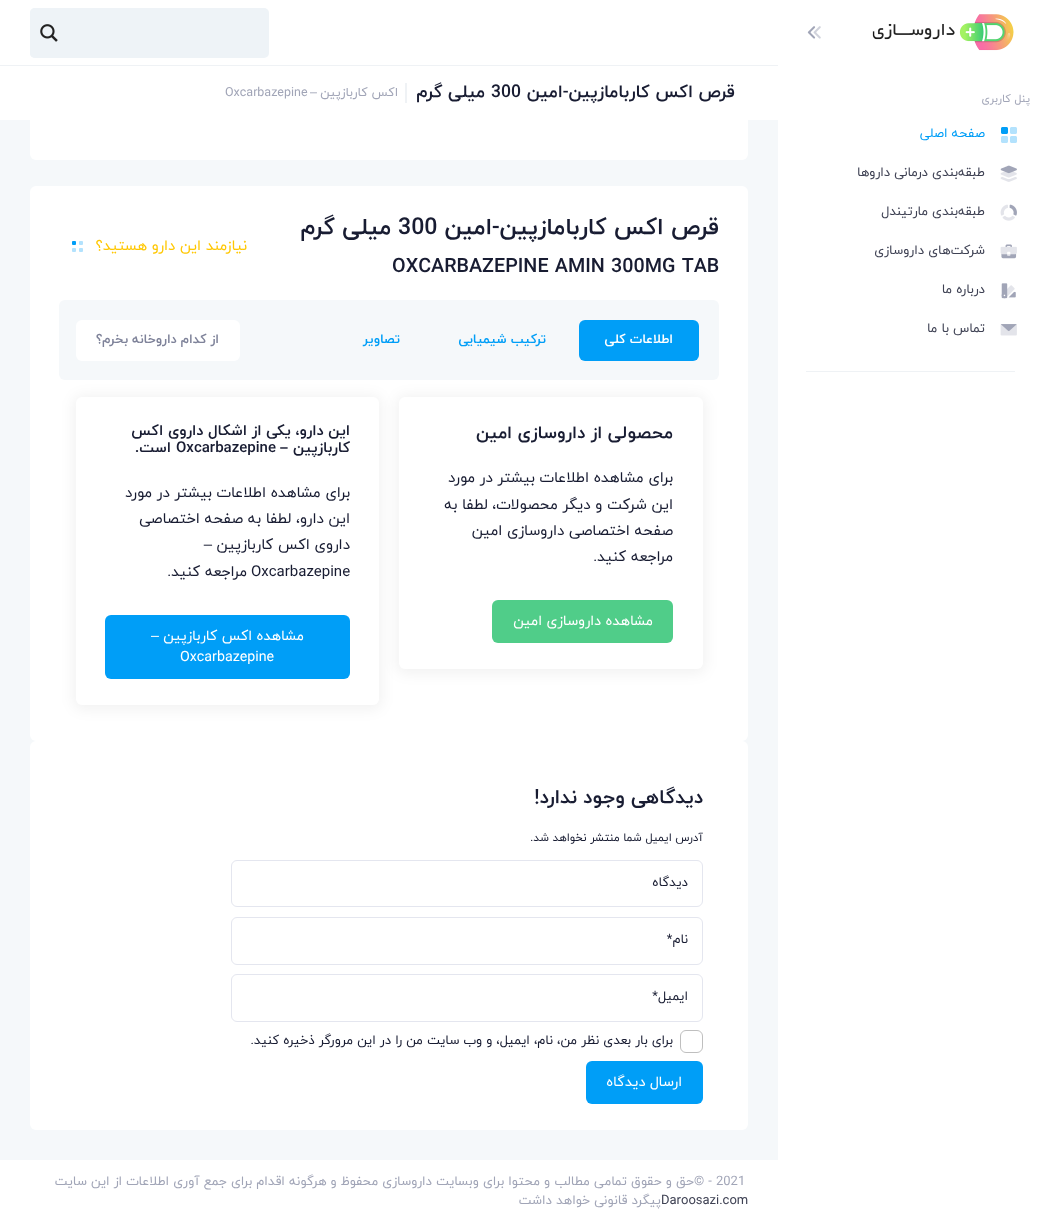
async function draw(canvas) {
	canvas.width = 1043;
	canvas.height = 1225;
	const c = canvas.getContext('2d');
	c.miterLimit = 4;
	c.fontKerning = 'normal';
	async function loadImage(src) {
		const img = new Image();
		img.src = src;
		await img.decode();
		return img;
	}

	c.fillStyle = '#f5f8fa';
	c.fillRect(0, 0, 1043, 1225);
	c.fillStyle = '#fff';
	c.fillRect(778, 0, 265, 1225);
	c.drawImage(await loadImage('img1.png'), 872, 14, 142, 37);
	c.drawImage(await loadImage('img2.png'), 807, 26, 14, 13);
	c.letterSpacing = '1.25px';
	c.wordSpacing = '-1px';
	c.direction = 'rtl';
	c.font = '11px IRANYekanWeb';
	c.fillStyle = '#a1a5b7';
	c.fillText('پنل کاربری', 1030, 102);
	c.drawImage(await loadImage('img3.png'), 1001, 127, 16, 16);
	c.letterSpacing = '0px';
	c.wordSpacing = '0px';
	c.font = '13px IRANYekanWeb';
	c.fillStyle = '#009ef7';
	c.fillText('صفحه اصلی', 985, 137);
	c.drawImage(await loadImage('img4.png'), 1000, 165, 17, 17);
	c.fillStyle = '#3f4254';
	c.fillText('طبقه‌بندی درمانی داروها', 985, 176);
	c.drawImage(await loadImage('img5.png'), 1000, 204, 17, 17);
	c.fillText('طبقه‌بندی مارتیندل', 985, 215);
	c.drawImage(await loadImage('img6.png'), 1000, 244, 17, 15);
	c.fillText('شرکت‌های داروسازی', 985, 254);
	c.drawImage(await loadImage('img7.png'), 1001, 283, 15, 16);
	c.fillText('درباره ما', 985, 293);
	c.drawImage(await loadImage('img8.png'), 1000, 324, 17, 12);
	c.fillText('تماس با ما', 985, 332);
	c.fillStyle = '#eff2f5';
	c.fillRect(806, 371, 209, 1);
	c.fillStyle = '#fff';
	c.beginPath();
	c.roundRect(30, -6, 718, 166, 6);
	c.fill();
	c.fillRect(0, 0, 778, 65);
	c.fillStyle = '#eef3f7';
	c.beginPath();
	c.roundRect(30, 8, 239, 50, 5);
	c.fill();
	c.beginPath();
	c.roundRect(30, 8, 60, 50, [5, 0, 0, 5]);
	c.fill();
	c.drawImage(await loadImage('img9.png'), 40, 24, 18, 18);
	c.fillStyle = '#fff';
	c.fillRect(0, 66, 778, 54);
	c.fillStyle = '#eff2f5';
	c.fillRect(0, 65, 778, 1);
	c.font = 'bold 17.6px IRANYekanWeb';
	c.fillStyle = '#181c32';
	c.fillText('قرص اکس کاربامازپین-امین', 735, 97);
	c.direction = 'ltr';
	c.fillText('300', 491, 97);
	c.direction = 'rtl';
	c.fillText('میلی گرم', 485, 97);
	c.fillStyle = '#eff2f5';
	c.fillRect(405, 83, 2, 20);
	c.font = '12.5px IRANYekanWeb';
	c.fillStyle = '#a1a5b7';
	c.fillText('اکس کاربازپین', 398, 96);
	c.font = '12.5px Liberation Sans';
	c.fillText('–', 317, 96);
	c.direction = 'ltr';
	c.font = '12.5px IRANYekanWeb';
	c.fillText('Oxcarbazepine', 225, 96);
	c.fillStyle = '#fff';
	c.beginPath();
	c.roundRect(30, 186, 718, 555, 6);
	c.fill();
	c.direction = 'rtl';
	c.font = 'bold 23.2px IRANYekanWeb';
	c.fillStyle = '#181c32';
	c.fillText('قرص اکس کاربامازپین-امین', 719, 234);
	c.direction = 'ltr';
	c.fillText('300', 398, 234);
	c.direction = 'rtl';
	c.fillText('میلی گرم', 391, 234);
	c.direction = 'ltr';
	c.font = 'bold 19.75px IRANYekanWeb';
	c.fillText('OXCARBAZEPINE AMIN 300MG TAB', 392, 272);
	c.direction = 'rtl';
	c.font = '14.75px IRANYekanWeb';
	c.fillStyle = '#ffc700';
	c.fillText('نیازمند این دارو هستید؟', 247, 250);
	c.drawImage(await loadImage('img10.png'), 72, 241, 11, 11);
	c.fillStyle = '#f5f8fa';
	c.beginPath();
	c.roundRect(59, 300, 660, 80, 6);
	c.fill();
	c.fillStyle = '#009ef7';
	c.beginPath();
	c.roundRect(579, 320, 120, 41, 6);
	c.fill();
	c.font = 'bold 13px IRANYekanWeb';
	c.fillStyle = '#fff';
	c.fillText('اطلاعات کلی', 673, 343);
	c.fillStyle = '#009ef7';
	c.fillText('ترکیب شیمیایی', 546, 343);
	c.fillText('تصاویر', 400, 343);
	c.fillStyle = '#fff';
	c.beginPath();
	c.roundRect(76, 320, 164, 41, 6);
	c.fill();
	c.fillStyle = '#7e8299';
	c.fillText('از کدام داروخانه بخرم؟', 219, 343);
	c.fillStyle = '#0000000d';
	c.filter = 'blur(6.5px)';
	c.beginPath();
	c.roundRect(396, 395, 310, 279, 9);
	c.fill();
	c.filter = 'none';
	c.fillStyle = '#fff';
	c.beginPath();
	c.roundRect(399, 397, 304, 272, 6);
	c.fill();
	c.font = 'bold 17.6px IRANYekanWeb';
	c.fillStyle = '#181c32';
	c.fillText('محصولی از داروسازی امین', 673, 438);
	c.font = '15px IRANYekanWeb';
	for (const [text, x, y] of [
		['برای مشاهده اطلاعات بیشتر در مورد', 673, 482],
		['این شرکت و دیگر محصولات، لطفا به', 673, 509],
		['صفحه اختصاصی داروسازی امین', 673, 535],
		['مراجعه کنید.', 673, 561],
	]) {
		c.fillText(text, x, y);
	}
	c.fillStyle = '#50cd89';
	c.beginPath();
	c.roundRect(492, 600, 181, 43, 6);
	c.fill();
	c.font = '14.25px IRANYekanWeb';
	c.fillStyle = '#fff';
	c.fillText('مشاهده داروسازی امین', 653, 625);
	c.fillStyle = '#0000000d';
	c.filter = 'blur(6.5px)';
	c.beginPath();
	c.roundRect(73, 395, 309, 315, 9);
	c.fill();
	c.filter = 'none';
	c.fillStyle = '#fff';
	c.beginPath();
	c.roundRect(76, 397, 303, 308, 6);
	c.fill();
	c.font = 'bold 15px IRANYekanWeb';
	c.fillStyle = '#181c32';
	c.fillText('این دارو، یکی از اشکال داروی اکس', 350, 435);
	c.fillText('کاربازپین', 350, 452);
	c.font = 'bold 15px Liberation Sans';
	c.fillText('–', 288, 452);
	c.direction = 'ltr';
	c.font = 'bold 15px IRANYekanWeb';
	c.fillText('Oxcarbazepine', 176, 452);
	c.direction = 'rtl';
	c.fillText('است.', 171, 452);
	c.font = '15px IRANYekanWeb';
	for (const [text, x, y] of [
		['برای مشاهده اطلاعات بیشتر در مورد', 350, 497],
		['این دارو، لطفا به صفحه اختصاصی', 350, 523],
		['داروی اکس کاربازپین', 350, 549],
	]) {
		c.fillText(text, x, y);
	}
	c.font = '15px Liberation Sans';
	c.fillText('–', 212, 549);
	c.direction = 'ltr';
	c.font = '15px IRANYekanWeb';
	c.fillText('Oxcarbazepine', 251, 576);
	c.direction = 'rtl';
	c.fillText('مراجعه کنید.', 247, 576);
	c.fillStyle = '#009ef7';
	c.beginPath();
	c.roundRect(105, 615, 245, 64, 6);
	c.fill();
	c.font = '14.25px IRANYekanWeb';
	c.fillStyle = '#fff';
	c.fillText('مشاهده اکس کاربازپین', 304, 640);
	c.font = '14.25px Liberation Sans';
	c.fillText('–', 159, 640);
	c.direction = 'ltr';
	c.font = '14.25px IRANYekanWeb';
	c.fillText('Oxcarbazepine', 180, 661);
	c.beginPath();
	c.roundRect(30, 741, 718, 389, 6);
	c.fill();
	c.direction = 'rtl';
	c.font = 'bold 19.75px IRANYekanWeb';
	c.fillStyle = '#181c32';
	c.fillText('دیدگاهی وجود ندارد!', 703, 803);
	c.font = '11.4px IRANYekanWeb';
	c.fillText('آدرس ایمیل شما منتشر نخواهد شد.', 703, 841);
	c.beginPath();
	c.roundRect(231.5, 860.5, 471, 46, 5.5);
	c.strokeStyle = '#e4e6ef';
	c.stroke();
	c.font = '13px IRANYekanWeb';
	c.fillText('دیدگاه', 688, 886);
	c.beginPath();
	c.roundRect(231.5, 917.5, 471, 47, 5.5);
	c.stroke();
	c.fillText('نام*', 688, 943);
	c.beginPath();
	c.roundRect(231.5, 974.5, 471, 47, 5.5);
	c.stroke();
	c.fillText('ایمیل*', 688, 1000);
	c.beginPath();
	c.roundRect(680.5, 1030.5, 22, 22, 5.5);
	c.strokeStyle = '#bfbfbf';
	c.stroke();
	c.fillText('برای بار بعدی نظر من، نام، ایمیل، و وب سایت من را در این مرورگر ذخیره کنید.', 673, 1044);
	c.fillStyle = '#009ef7';
	c.beginPath();
	c.roundRect(586, 1061, 117, 43, 6);
	c.fill();
	c.font = '14.25px IRANYekanWeb';
	c.fillStyle = '#fff';
	c.fillText('ارسال دیدگاه', 682, 1086);
	c.fillRect(0, 1160, 778, 65);
	c.direction = 'ltr';
	c.font = '13px IRANYekanWeb';
	c.fillStyle = '#a1a5b7';
	c.fillText('© - 2021', 694, 1185);
	c.direction = 'rtl';
	c.fillText('حق و حقوق تمامی مطالب و محتوا برای وبسایت داروسازی محفوظ و هرگونه اقدام برای جمع آوری اطلاعات از این سایت', 694, 1185);
	c.direction = 'ltr';
	c.fillStyle = '#3f4254';
	c.fillText('Daroosazi.com', 661, 1204);
	c.direction = 'rtl';
	c.fillStyle = '#a1a5b7';
	c.fillText('پیگرد قانونی خواهد داشت', 661, 1204);
}

draw(document.querySelector('canvas'));
